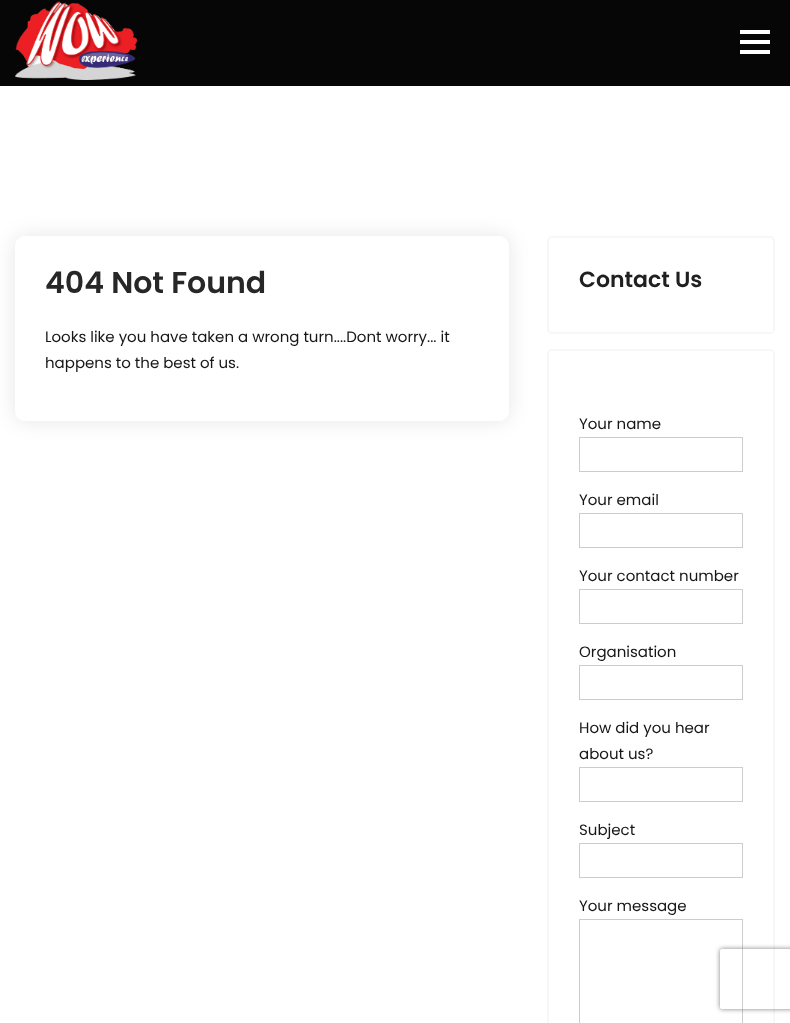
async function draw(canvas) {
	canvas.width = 790;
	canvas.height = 1023;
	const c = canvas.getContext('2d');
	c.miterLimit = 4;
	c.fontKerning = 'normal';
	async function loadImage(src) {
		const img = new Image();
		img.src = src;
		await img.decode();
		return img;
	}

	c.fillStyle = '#fff';
	c.fillRect(0, 0, 790, 1023);
	c.fillStyle = '#060606';
	c.fillRect(0, 0, 790, 86);
	c.drawImage(await loadImage('img1.png'), 15, 1, 122, 79);
	for (const [x, y, w, h, color] of [
		[740, 40, 30, 4, '#fff'],
		[740, 30, 30, 4, '#fff'],
		[740, 50, 30, 4, '#fff'],
	]) {
		c.fillStyle = color;
		c.fillRect(x, y, w, h);
	}
	c.save();
	c.beginPath();
	c.moveTo(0, 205);
	c.lineTo(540, 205);
	c.lineTo(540, 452);
	c.lineTo(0, 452);
	c.closePath();
	c.moveTo(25, 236);
	c.lineTo(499, 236);
	c.bezierCurveTo(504.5, 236, 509, 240.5, 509, 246);
	c.lineTo(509, 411);
	c.bezierCurveTo(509, 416.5, 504.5, 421, 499, 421);
	c.lineTo(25, 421);
	c.bezierCurveTo(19.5, 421, 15, 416.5, 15, 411);
	c.lineTo(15, 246);
	c.bezierCurveTo(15, 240.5, 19.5, 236, 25, 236);
	c.closePath();
	c.clip('evenodd');
	c.fillStyle = '#0000001a';
	c.filter = 'blur(10px)';
	c.beginPath();
	c.roundRect(15, 236, 494, 185, 10);
	c.fill();
	c.filter = 'none';
	c.restore();
	c.font = '600 30px Poppins';
	c.fillStyle = '#272727';
	c.fillText('404 Not Found', 45, 293);
	c.font = '15px Poppins';
	c.fillStyle = '#161616';
	c.fillText('Looks like you have taken a wrong turn....Dont worry... it', 45, 342);
	c.fillText('happens to the best of us.', 45, 368);
	c.beginPath();
	c.roundRect(548, 237, 226, 96, 4);
	c.strokeStyle = '#f7f7f7';
	c.lineWidth = 2;
	c.stroke();
	c.font = '600 22px Poppins';
	c.fillStyle = '#202020';
	c.fillText('Contact Us', 579, 287);
	c.beginPath();
	c.roundRect(548, 350, 226, 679, 4);
	c.stroke();
	c.font = '15px Poppins';
	c.fillStyle = '#161616';
	c.fillText('Your name', 579, 429);
	c.strokeStyle = '#ccc';
	c.lineWidth = 1;
	c.strokeRect(579.5, 437.5, 163, 34);
	c.fillText('Your email', 579, 505);
	c.strokeRect(579.5, 513.5, 163, 34);
	c.fillText('Your contact number', 579, 581);
	c.strokeRect(579.5, 589.5, 163, 34);
	c.fillText('Organisation', 579, 657);
	c.strokeRect(579.5, 665.5, 163, 34);
	c.fillText('How did you hear', 579, 733);
	c.fillText('about us?', 579, 759);
	c.strokeRect(579.5, 767.5, 163, 34);
	c.fillText('Subject', 579, 835);
	c.strokeRect(579.5, 843.5, 163, 34);
	c.fillText('Your message', 579, 911);
	c.strokeRect(579.5, 919.5, 163, 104);
	c.save();
	c.beginPath();
	c.moveTo(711, 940);
	c.lineTo(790, 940);
	c.lineTo(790, 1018);
	c.lineTo(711, 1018);
	c.closePath();
	c.moveTo(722, 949);
	c.lineTo(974, 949);
	c.bezierCurveTo(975, 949, 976, 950, 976, 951);
	c.lineTo(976, 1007);
	c.bezierCurveTo(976, 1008, 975, 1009, 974, 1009);
	c.lineTo(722, 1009);
	c.bezierCurveTo(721, 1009, 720, 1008, 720, 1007);
	c.lineTo(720, 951);
	c.bezierCurveTo(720, 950, 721, 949, 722, 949);
	c.closePath();
	c.clip('evenodd');
	c.fillStyle = '#808080';
	c.filter = 'blur(2.5px)';
	c.beginPath();
	c.roundRect(720, 949, 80, 60, 2);
	c.fill();
	c.filter = 'none';
	c.restore();
}

draw(document.querySelector('canvas'));
